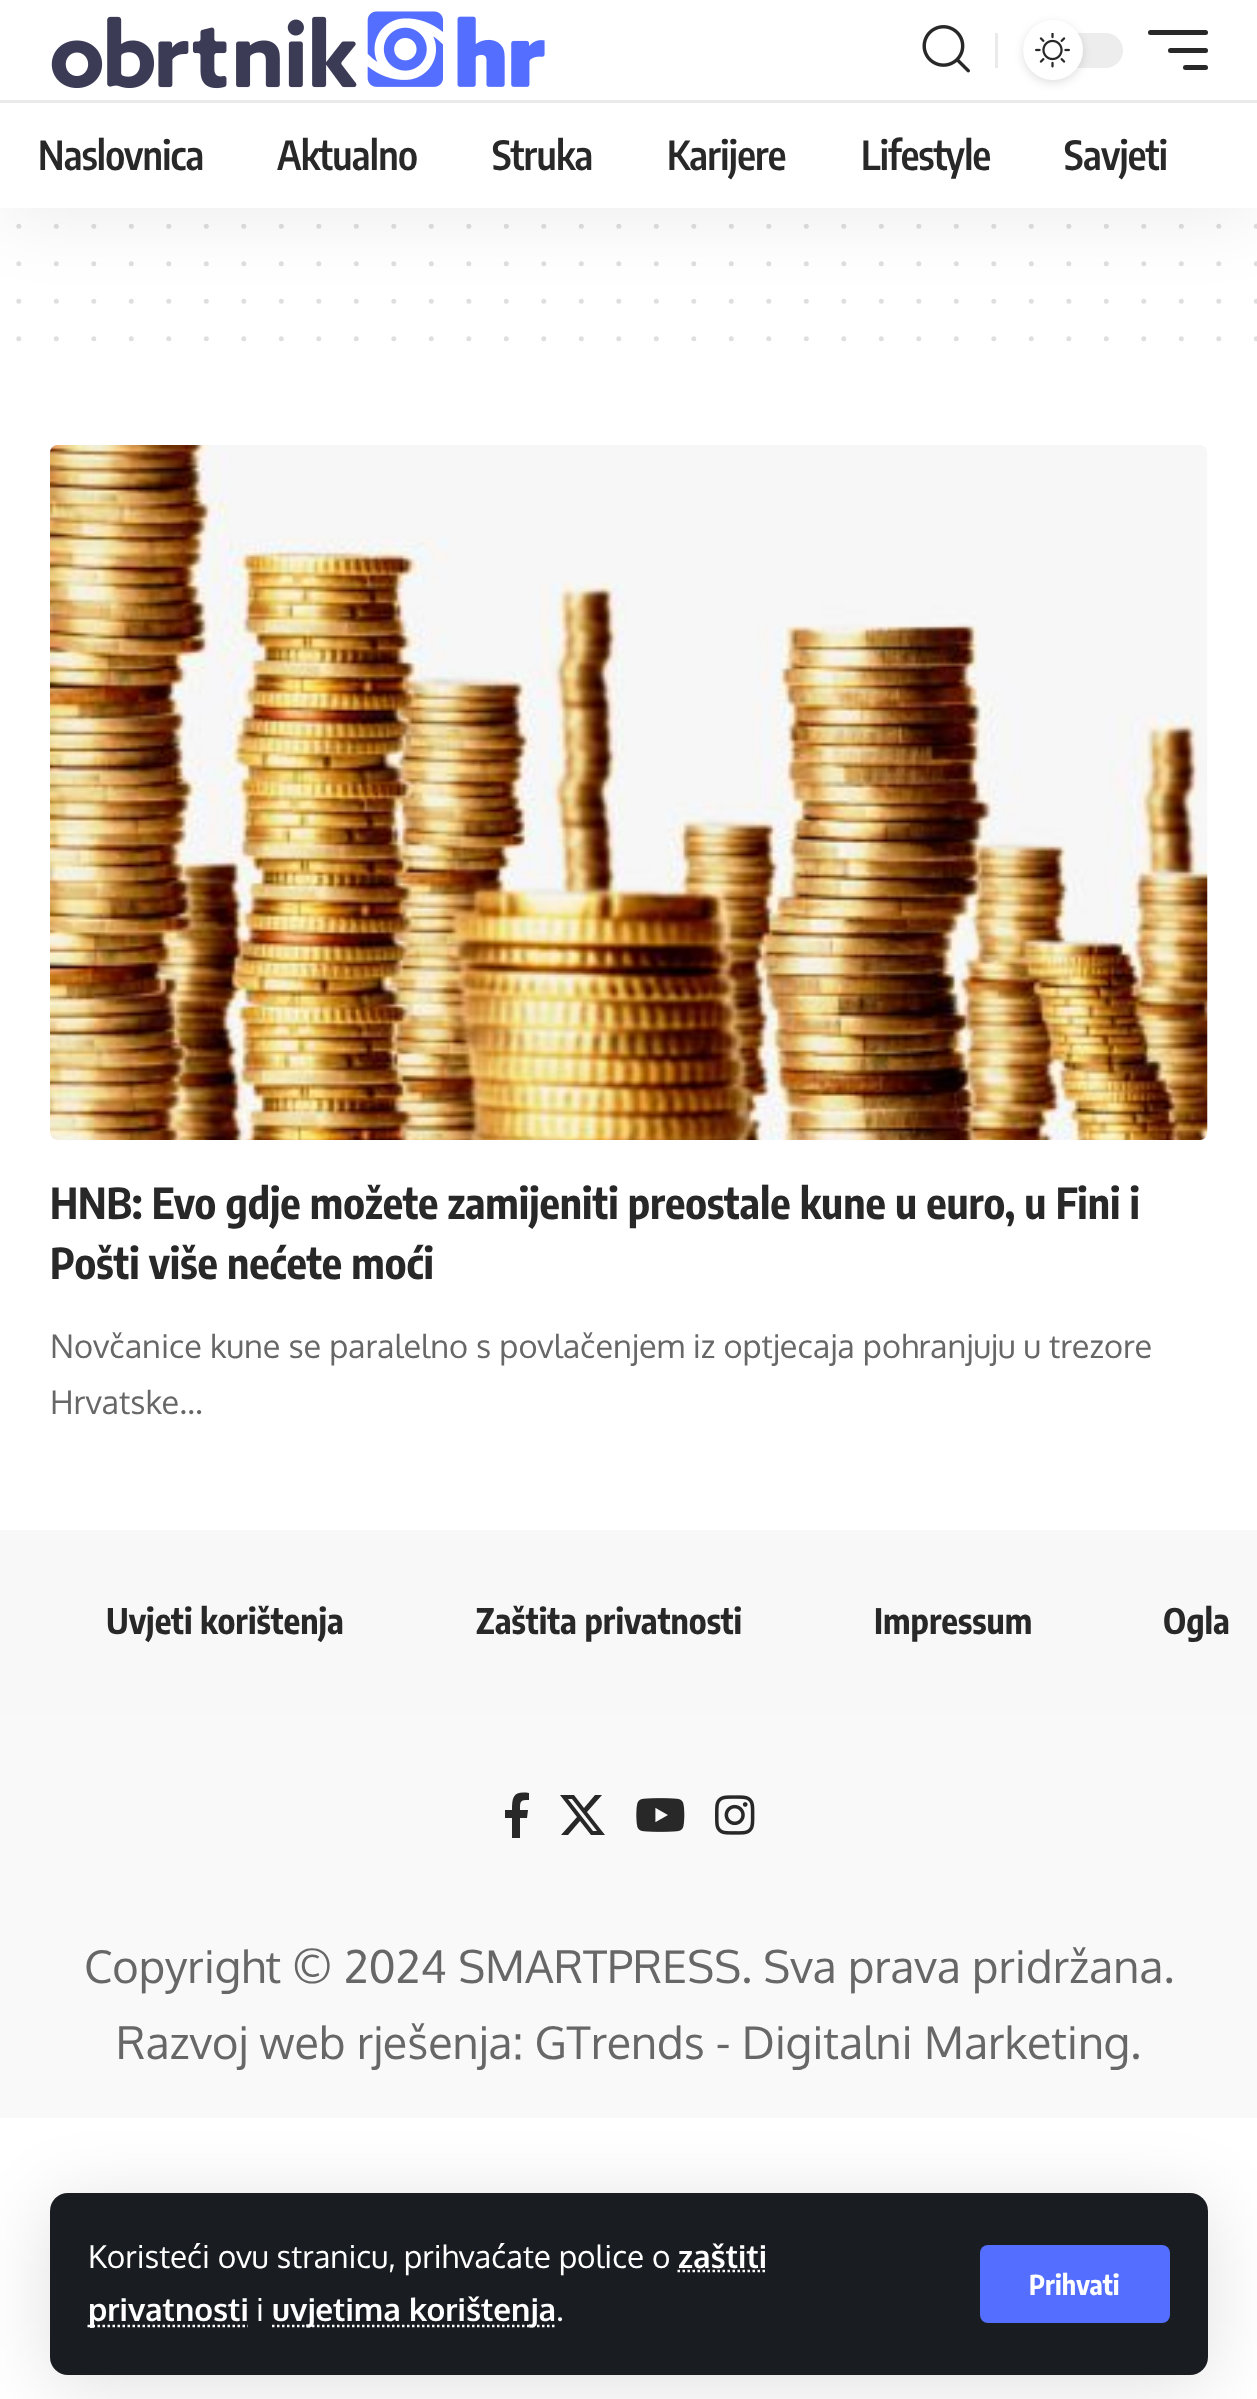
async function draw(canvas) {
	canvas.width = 1257;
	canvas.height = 2399;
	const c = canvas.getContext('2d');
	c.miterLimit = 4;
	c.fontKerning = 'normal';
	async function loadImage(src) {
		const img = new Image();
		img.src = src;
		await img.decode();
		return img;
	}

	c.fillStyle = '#fff';
	c.fillRect(0, 0, 1257, 2399);
	c.beginPath();
	c.moveTo(18.8, 226.2);
	c.lineTo(1256.8, 226.2);
	c.strokeStyle = '#dfdfdf';
	c.lineWidth = 5;
	c.lineCap = 'round';
	c.setLineDash([0, 37.5]);
	c.stroke();
	c.beginPath();
	c.moveTo(18.8, 263.8);
	c.lineTo(1256.8, 263.8);
	c.stroke();
	c.beginPath();
	c.moveTo(18.8, 301.2);
	c.lineTo(1256.8, 301.2);
	c.stroke();
	c.fillStyle = '#00000012';
	c.filter = 'blur(37.5px)';
	c.beginPath();
	c.rect(0, 10, 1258, 208);
	c.fill();
	c.filter = 'none';
	c.fillStyle = '#fff';
	c.fillRect(0, 0, 1257, 208);
	c.drawImage(await loadImage('img1.png'), 51, 11, 494, 78);
	c.drawImage(await loadImage('img2.png'), 922, 25, 48, 48);
	c.fillStyle = '#eaeaea';
	c.fillRect(995, 33, 3, 35);
	c.fillStyle = '#ededed';
	c.beginPath();
	c.roundRect(1023, 33, 100, 35, 17.5);
	c.fill();
	c.fillStyle = '#0000001f';
	c.filter = 'blur(5px)';
	c.beginPath();
	c.roundRect(1023, 23, 60, 60, 30);
	c.fill();
	c.filter = 'none';
	c.fillStyle = '#fff';
	c.beginPath();
	c.arc(1053, 50, 30, 0, 2 * Math.PI);
	c.fill();
	c.drawImage(await loadImage('img3.png'), 1035, 33, 35, 35);
	c.fillStyle = '#282828';
	c.beginPath();
	c.roundRect(1148, 30, 60, 5, 2.5);
	c.fill();
	c.beginPath();
	c.roundRect(1168, 48, 40, 5, 2.5);
	c.fill();
	c.beginPath();
	c.roundRect(1183, 65, 25, 5, 2.5);
	c.fill();
	c.fillStyle = '#eaeaea';
	c.fillRect(0, 100, 1257, 3);
	c.letterSpacing = '-0.75px';
	c.font = '600 40px Encode Sans Condensed';
	c.fillStyle = '#282828';
	for (const [text, x, y] of [
		['Naslovnica', 38, 170],
		['Aktualno', 277, 170],
		['Struka', 492, 170],
		['Karijere', 667, 170],
		['Lifestyle', 861, 170],
		['Savjeti', 1064, 170],
	]) {
		c.fillText(text, x, y);
	}
	c.fillStyle = '#f9f9f9';
	c.fillRect(0, 1715, 1257, 403);
	c.fillStyle = '#0000001f';
	c.filter = 'blur(37.5px)';
	c.beginPath();
	c.roundRect(50, 2203, 1158, 182, 18);
	c.fill();
	c.filter = 'none';
	c.fillStyle = '#191c20';
	c.beginPath();
	c.roundRect(50, 2193, 1158, 182, 18);
	c.fill();
	c.letterSpacing = '0px';
	c.font = '31.5px Oxygen';
	c.fillStyle = '#fff';
	c.fillText('Koristeći ovu stranicu, prihvaćate police o', 88, 2268);
	c.font = 'bold 31.5px Oxygen';
	c.fillText('zaštiti', 678, 2268);
	c.beginPath();
	c.moveTo(677.5, 2271);
	c.lineTo(766.5, 2271);
	c.strokeStyle = '#fff';
	c.lineWidth = 2.5;
	c.lineCap = 'butt';
	c.setLineDash([2.5, 2.5]);
	c.stroke();
	c.beginPath();
	c.moveTo(87.5, 2326);
	c.lineTo(248, 2326);
	c.stroke();
	c.fillText('privatnosti', 88, 2321);
	c.font = '31.5px Oxygen';
	c.fillText('i', 256, 2321);
	c.beginPath();
	c.moveTo(272, 2326);
	c.lineTo(555.5, 2326);
	c.stroke();
	c.font = 'bold 31.5px Oxygen';
	c.fillText('uvjetima korištenja', 272, 2321);
	c.font = '31.5px Oxygen';
	c.fillText('.', 556, 2321);
	c.fillStyle = '#546fff';
	c.beginPath();
	c.roundRect(980, 2245, 190, 78, 8);
	c.fill();
	c.font = 'bold 27.5px Encode Sans Condensed';
	c.fillStyle = '#fff';
	c.fillText('Prihvati', 1029, 2295);
	c.beginPath();
	c.moveTo(18.8, 338.8);
	c.lineTo(1256.8, 338.8);
	c.strokeStyle = '#dfdfdf';
	c.lineWidth = 5;
	c.lineCap = 'round';
	c.setLineDash([0, 37.5]);
	c.stroke();
	c.drawImage(await loadImage('img4.png'), 50, 445, 1158, 695);
	c.font = 'bold 42.5px Encode Sans Condensed';
	c.fillStyle = '#282828';
	c.fillText('HNB: Evo gdje možete zamijeniti preostale kune u euro, u Fini i', 50, 1219);
	c.fillText('Pošti više nećete moći', 50, 1279);
	c.font = '32.5px Oxygen';
	c.fillStyle = '#676767';
	c.fillText('Novčanice kune se paralelno s povlačenjem iz optjecaja pohranjuju u trezore', 50, 1358);
	c.fillText('Hrvatske…', 50, 1414);
	c.fillStyle = '#f8f8f8';
	c.fillRect(0, 1530, 1257, 185);
	c.font = 'bold 35px Encode Sans Condensed';
	c.fillStyle = '#282828';
	for (const [text, x, y] of [
		['Uvjeti korištenja', 106, 1634],
		['Zaštita privatnosti', 476, 1634],
		['Impressum', 874, 1634],
		['Ogla', 1163, 1634],
	]) {
		c.fillText(text, x, y);
	}
	c.beginPath();
	c.moveTo(527, 1818);
	c.lineTo(528, 1810);
	c.lineTo(520, 1810);
	c.bezierCurveTo(520, 1801, 520, 1800, 529, 1800);
	c.lineTo(529, 1793);
	c.bezierCurveTo(514, 1791, 512, 1796, 512, 1810);
	c.lineTo(505, 1810);
	c.lineTo(505, 1818);
	c.lineTo(512, 1818);
	c.lineTo(512, 1838);
	c.lineTo(520, 1838);
	c.lineTo(520, 1818);
	c.closePath();
	c.fill();
	c.beginPath();
	c.moveTo(595, 1795);
	c.lineTo(602, 1795);
	c.lineTo(587, 1812);
	c.lineTo(605, 1835);
	c.lineTo(591, 1835);
	c.lineTo(580, 1821);
	c.lineTo(568, 1835);
	c.lineTo(561, 1835);
	c.lineTo(577, 1817);
	c.lineTo(560, 1795);
	c.lineTo(574, 1795);
	c.lineTo(584, 1808);
	c.closePath();
	c.moveTo(593, 1831);
	c.lineTo(597, 1831);
	c.lineTo(572, 1799);
	c.lineTo(568, 1799);
	c.closePath();
	c.fill();
	c.drawImage(await loadImage('img5.png'), 636, 1798, 49, 34);
	c.drawImage(await loadImage('img6.png'), 715, 1795, 40, 40);
	c.font = '45px Oxygen';
	c.fillStyle = '#676767';
	c.fillText('Copyright © 2024 SMARTPRESS. Sva prava pridržana.', 84, 1983);
	c.fillText('Razvoj web rješenja: GTrends - Digitalni Marketing.', 116, 2059);
}

draw(document.querySelector('canvas'));
